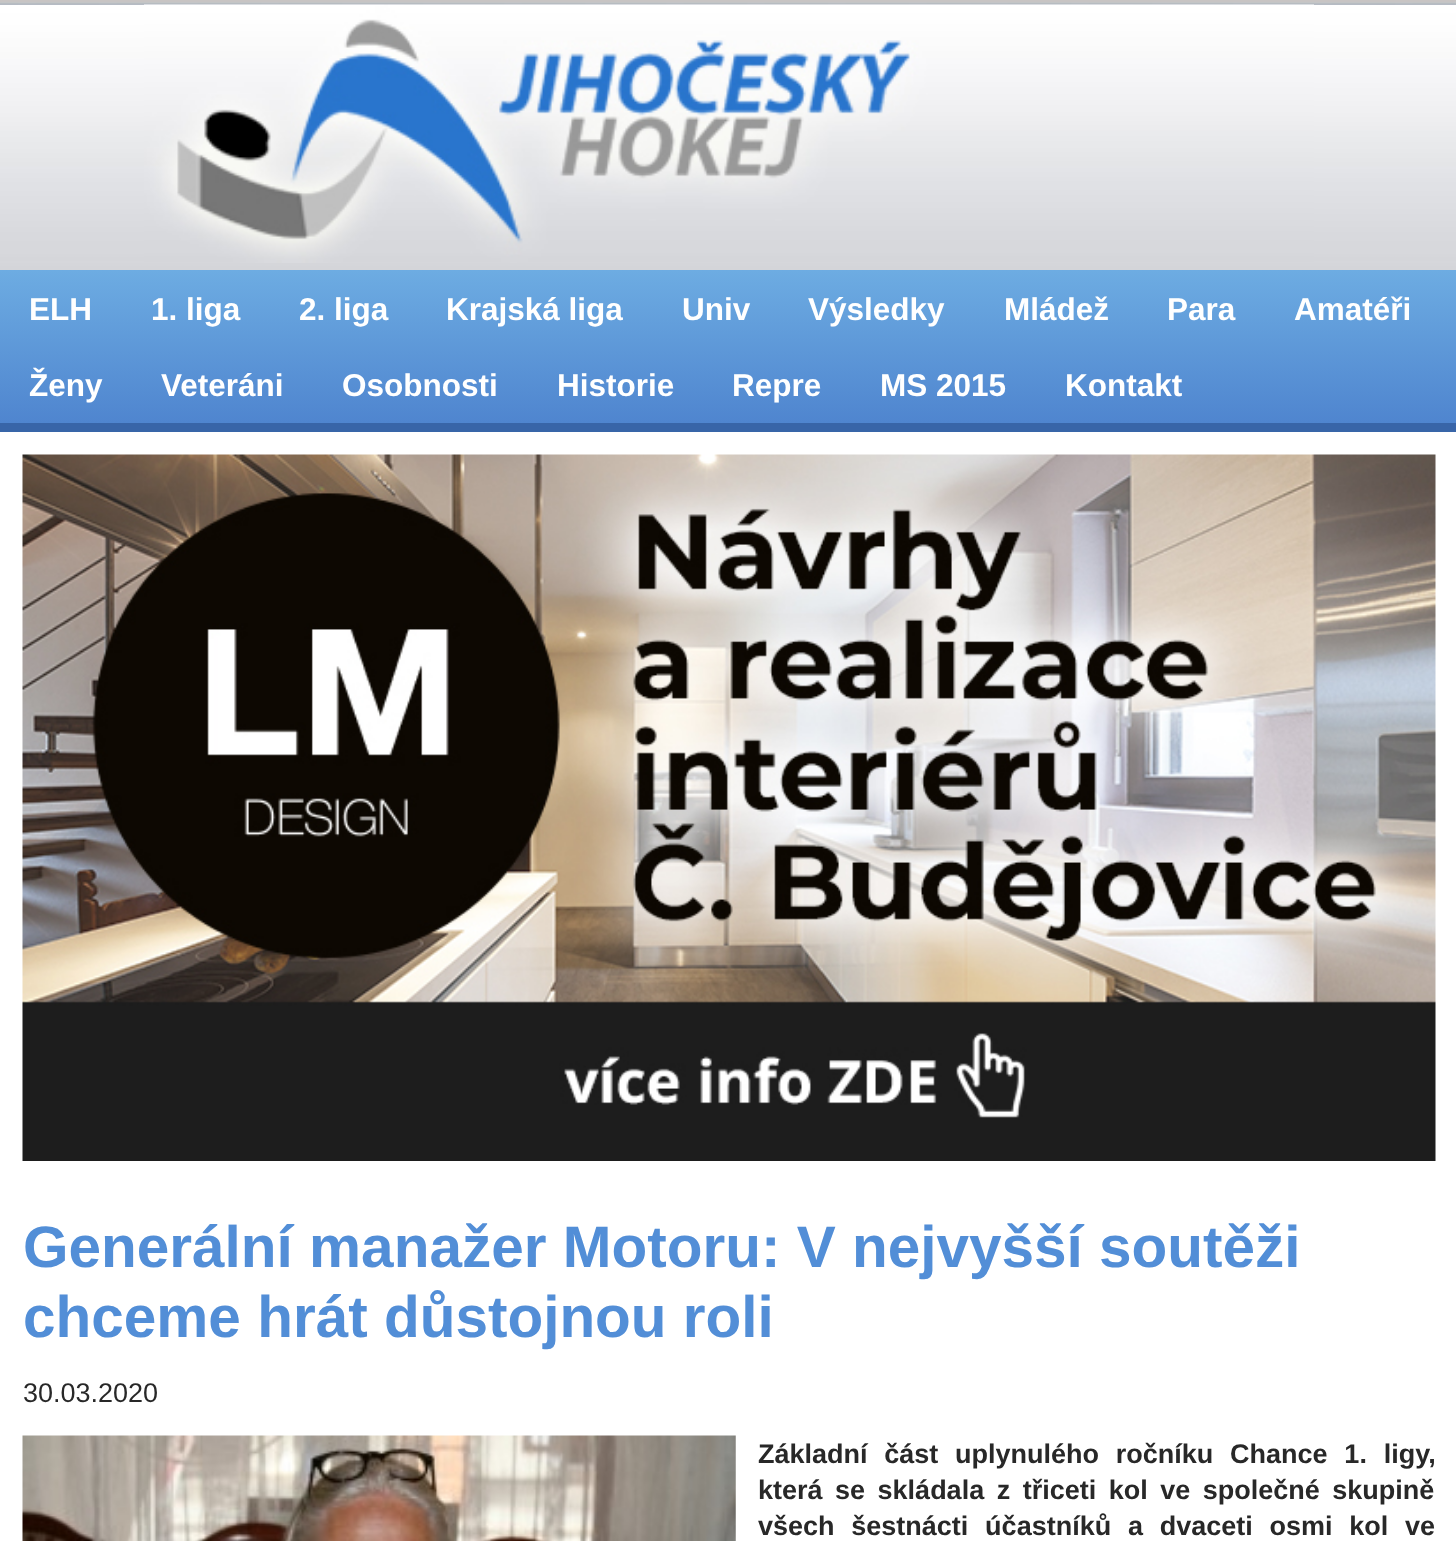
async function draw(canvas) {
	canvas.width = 1456;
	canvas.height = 1541;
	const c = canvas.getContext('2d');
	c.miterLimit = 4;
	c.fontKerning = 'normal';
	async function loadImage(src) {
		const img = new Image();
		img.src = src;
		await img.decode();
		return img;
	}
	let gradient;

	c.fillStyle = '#fff';
	c.fillRect(0, 0, 1456, 1541);
	c.drawImage(await loadImage('img1.png'), 0, 0, 1456, 5);
	c.drawImage(await loadImage('img2.png'), 0, 4, 1456, 266);
	c.drawImage(await loadImage('img3.png'), 144, 4, 1170, 259);
	gradient = c.createLinearGradient(729, 423, 729, 270);
	gradient.addColorStop(0, '#4f85cf');
	gradient.addColorStop(1, '#6dace2');
	c.fillStyle = gradient;
	c.fillRect(0, 270, 1456, 153);
	c.fillStyle = '#3865a8';
	c.fillRect(0, 423, 1456, 9);
	c.font = 'bold 31.5px Liberation Sans';
	c.fillStyle = '#fff';
	for (const [text, x, y] of [
		['ELH', 29, 320],
		['1. liga', 151, 320],
		['2. liga', 299, 320],
		['Krajská liga', 446, 320],
		['Univ', 682, 320],
		['Výsledky', 808, 320],
		['Mládež', 1004, 320],
		['Para', 1167, 320],
		['Amatéři', 1294, 320],
		['Ženy', 29, 396],
		['Veteráni', 161, 396],
		['Osobnosti', 342, 396],
		['Historie', 557, 396],
		['Repre', 732, 396],
		['MS 2015', 880, 396],
		['Kontakt', 1065, 396],
	]) {
		c.fillText(text, x, y);
	}
	c.drawImage(await loadImage('img4.png'), 22, 454, 1414, 707);
	c.font = 'bold 58.5px Liberation Sans';
	c.fillStyle = '#528ed7';
	c.fillText('Generální manažer Motoru: V nejvyšší soutěži', 23, 1267);
	c.fillText('chceme hrát důstojnou roli', 23, 1337);
	c.font = '27px Liberation Sans';
	c.fillStyle = '#282828';
	c.fillText('30.03.2020', 23, 1402);
	c.drawImage(await loadImage('img5.png'), 22, 1435, 714, 106);
	c.wordSpacing = '9.25px';
	c.font = 'bold 27px Liberation Sans';
	c.fillText('Základní část uplynulého ročníku Chance 1. ligy,', 758, 1463);
	c.wordSpacing = '5px';
	c.fillText('která se skládala z třiceti kol ve společné skupině', 758, 1499);
	c.wordSpacing = '9.25px';
	c.fillText('všech šestnácti účastníků a dvaceti osmi kol ve', 758, 1535);
}

draw(document.querySelector('canvas'));
